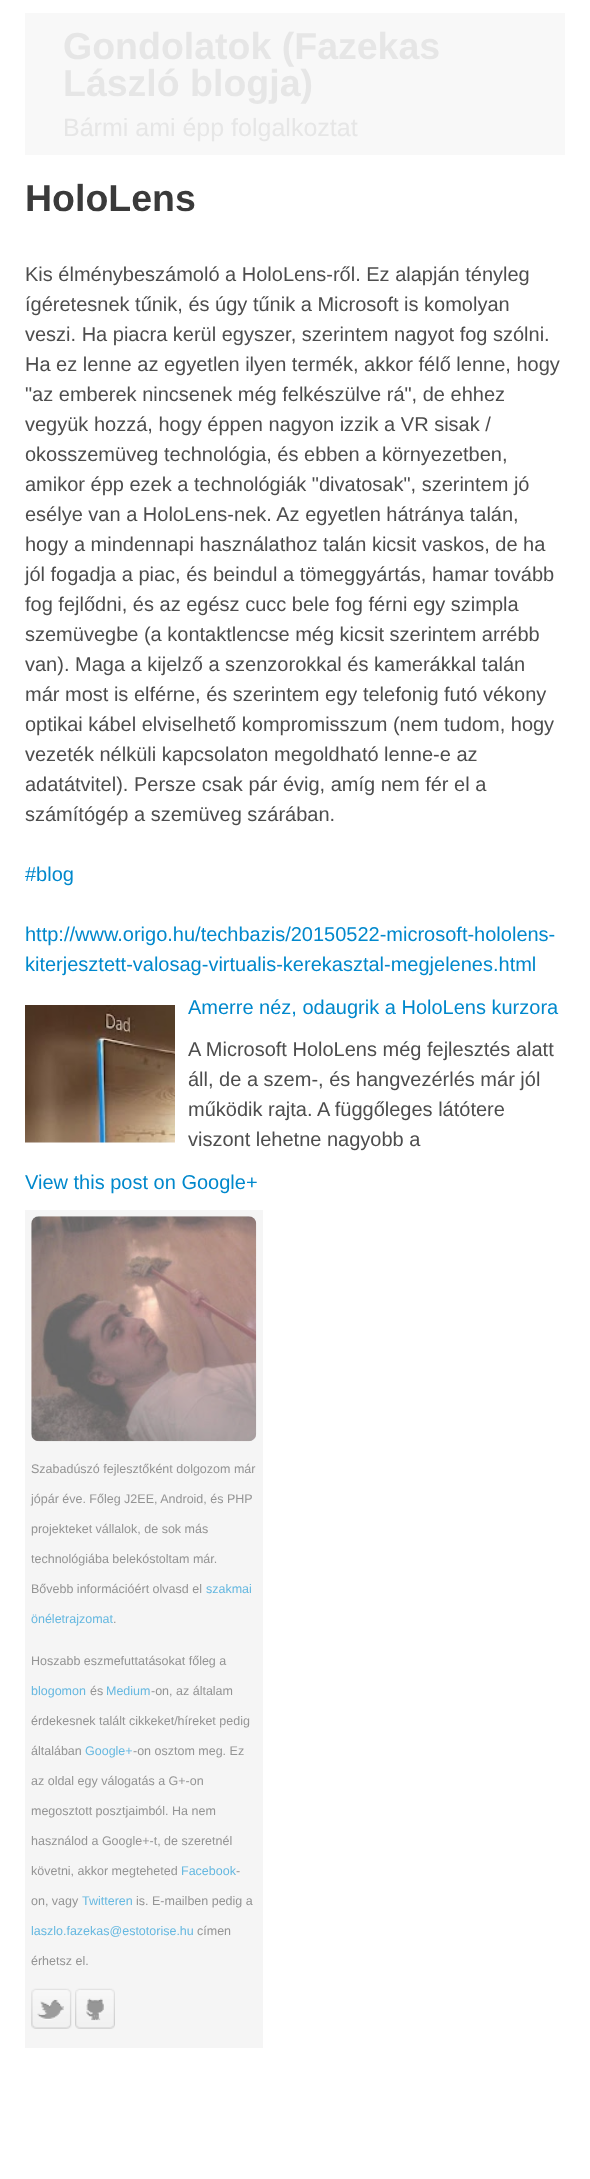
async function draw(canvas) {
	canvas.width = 590;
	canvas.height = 2179;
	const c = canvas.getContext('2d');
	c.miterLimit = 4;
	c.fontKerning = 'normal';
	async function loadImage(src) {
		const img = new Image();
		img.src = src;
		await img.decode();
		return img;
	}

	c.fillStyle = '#fff';
	c.fillRect(0, 0, 590, 2179);
	c.fillStyle = '#f8f8f8';
	c.fillRect(25, 13, 540, 142);
	c.font = 'bold 37.5px Liberation Sans';
	c.fillStyle = '#e6e6e6';
	c.fillText('Gondolatok (Fazekas', 63, 59);
	c.fillText('László blogja)', 63, 96);
	c.font = '25px Liberation Sans';
	c.fillText('Bármi ami épp folgalkoztat', 63, 136);
	c.font = 'bold 37.5px Liberation Sans';
	c.fillStyle = '#3a3a3a';
	c.fillText('HoloLens', 25, 211);
	c.font = '20px Liberation Sans';
	c.fillStyle = '#4d4d4d';
	for (const [text, x, y] of [
		['Kis élménybeszámoló a HoloLens-ről. Ez alapján tényleg', 25, 281],
		['ígéretesnek tűnik, és úgy tűnik a Microsoft is komolyan', 25, 311],
		['veszi. Ha piacra kerül egyszer, szerintem nagyot fog szólni.', 25, 341],
		['Ha ez lenne az egyetlen ilyen termék, akkor félő lenne, hogy', 25, 371],
		['"az emberek nincsenek még felkészülve rá", de ehhez', 25, 401],
		['vegyük hozzá, hogy éppen nagyon izzik a VR sisak /', 25, 431],
		['okosszemüveg technológia, és ebben a környezetben,', 25, 461],
		['amikor épp ezek a technológiák "divatosak", szerintem jó', 25, 491],
		['esélye van a HoloLens-nek. Az egyetlen hátránya talán,', 25, 521],
		['hogy a mindennapi használathoz talán kicsit vaskos, de ha', 25, 551],
		['jól fogadja a piac, és beindul a tömeggyártás, hamar tovább', 25, 581],
		['fog fejlődni, és az egész cucc bele fog férni egy szimpla', 25, 611],
		['szemüvegbe (a kontaktlencse még kicsit szerintem arrébb', 25, 641],
		['van). Maga a kijelző a szenzorokkal és kamerákkal talán', 25, 671],
		['már most is elférne, és szerintem egy telefonig futó vékony', 25, 701],
		['optikai kábel elviselhető kompromisszum (nem tudom, hogy', 25, 731],
		['vezeték nélküli kapcsolaton megoldható lenne-e az', 25, 761],
		['adatátvitel). Persze csak pár évig, amíg nem fér el a', 25, 791],
		['számítógép a szemüveg szárában.', 25, 821],
	]) {
		c.fillText(text, x, y);
	}
	c.fillStyle = '#08c';
	for (const [text, x, y] of [
		['#blog', 25, 881],
		['http://www.origo.hu/techbazis/20150522-microsoft-hololens-', 25, 941],
		['kiterjesztett-valosag-virtualis-kerekasztal-megjelenes.html', 25, 971],
	]) {
		c.fillText(text, x, y);
	}
	c.drawImage(await loadImage('img1.png'), 25, 1005, 150, 138);
	c.fillText('Amerre néz, odaugrik a HoloLens kurzora', 188, 1014);
	c.fillStyle = '#4d4d4d';
	for (const [text, x, y] of [
		['A Microsoft HoloLens még fejlesztés alatt', 188, 1056],
		['áll, de a szem-, és hangvezérlés már jól', 188, 1086],
		['működik rajta. A függőleges látótere', 188, 1116],
		['viszont lehetne nagyobb a', 188, 1146],
	]) {
		c.fillText(text, x, y);
	}
	c.fillStyle = '#08c';
	c.fillText('View this post on Google+', 25, 1189);
	c.fillStyle = '#f5f5f5';
	c.fillRect(25, 1210, 238, 838);
	c.drawImage(await loadImage('img2.png'), 31, 1216, 226, 226);
	c.font = '12.5px Liberation Sans';
	c.fillStyle = '#949494';
	for (const [text, x, y] of [
		['Szabadúszó fejlesztőként dolgozom már', 31, 1473],
		['jópár éve. Főleg J2EE, Android, és PHP', 31, 1503],
		['projekteket vállalok, de sok más', 31, 1533],
		['technológiába belekóstoltam már.', 31, 1563],
		['Bővebb információért olvasd el', 31, 1593],
	]) {
		c.fillText(text, x, y);
	}
	c.fillStyle = '#66b8e0';
	c.fillText('szakmai', 206, 1593);
	c.fillText('önéletrajzomat', 31, 1623);
	c.fillStyle = '#949494';
	c.fillText('.', 113, 1623);
	c.fillText('Hoszabb eszmefuttatásokat főleg a', 31, 1665);
	c.fillStyle = '#66b8e0';
	c.fillText('blogomon', 31, 1695);
	c.fillStyle = '#949494';
	c.fillText('és', 90, 1695);
	c.fillStyle = '#66b8e0';
	c.fillText('Medium', 106, 1695);
	c.fillStyle = '#949494';
	for (const [text, x, y] of [
		['-on, az általam', 151, 1695],
		['érdekesnek talált cikkeket/híreket pedig', 31, 1725],
		['általában', 31, 1755],
	]) {
		c.fillText(text, x, y);
	}
	c.fillStyle = '#66b8e0';
	c.fillText('Google+', 85, 1755);
	c.fillStyle = '#949494';
	for (const [text, x, y] of [
		['-on osztom meg. Ez', 133, 1755],
		['az oldal egy válogatás a G+-on', 31, 1785],
		['megosztott posztjaimból. Ha nem', 31, 1815],
		['használod a Google+-t, de szeretnél', 31, 1845],
		['követni, akkor megteheted', 31, 1875],
	]) {
		c.fillText(text, x, y);
	}
	c.fillStyle = '#66b8e0';
	c.fillText('Facebook', 181, 1875);
	c.fillStyle = '#949494';
	c.fillText('-', 236, 1875);
	c.fillText('on, vagy', 31, 1905);
	c.fillStyle = '#66b8e0';
	c.fillText('Twitteren', 82, 1905);
	c.fillStyle = '#949494';
	c.fillText('is. E-mailben pedig a', 136, 1905);
	c.fillStyle = '#66b8e0';
	c.fillText('laszlo.fazekas@estotorise.hu', 31, 1935);
	c.fillStyle = '#949494';
	c.fillText('címen', 197, 1935);
	c.fillText('érhetsz el.', 31, 1965);
	c.drawImage(await loadImage('img3.png'), 31, 1988, 41, 41);
	c.drawImage(await loadImage('img4.png'), 75, 1988, 40, 41);
}

draw(document.querySelector('canvas'));
